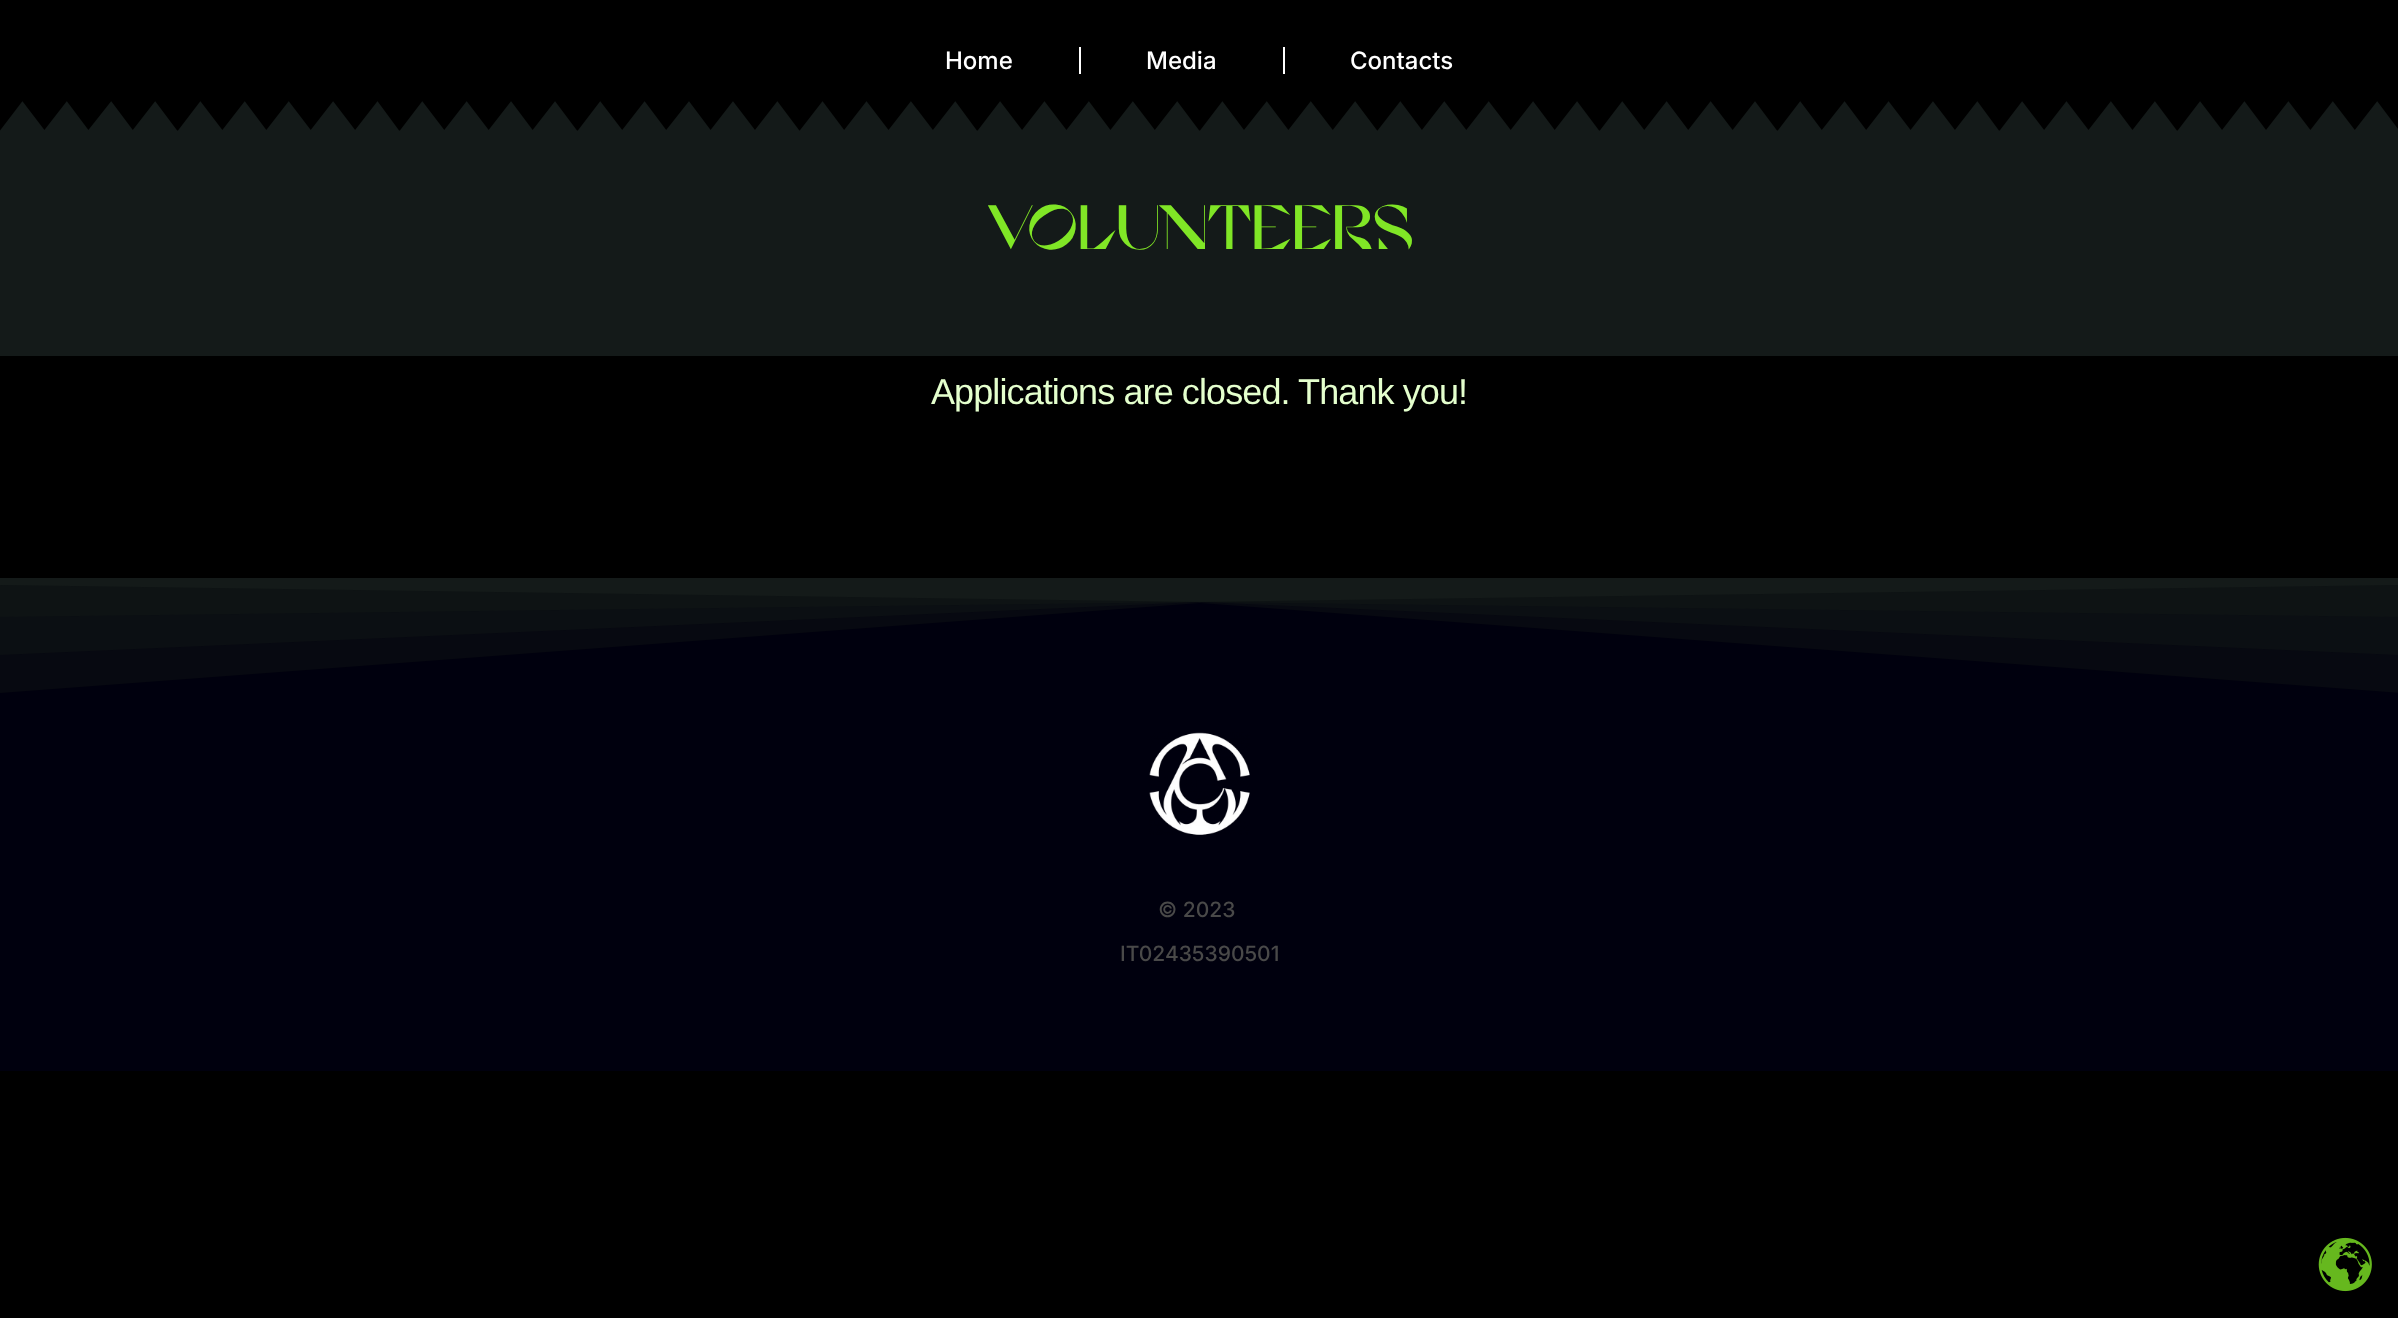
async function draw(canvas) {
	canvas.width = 2398;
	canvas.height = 1318;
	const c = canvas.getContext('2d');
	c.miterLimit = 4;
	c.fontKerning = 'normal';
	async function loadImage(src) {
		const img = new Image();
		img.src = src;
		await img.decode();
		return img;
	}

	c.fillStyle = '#000';
	c.fillRect(0, 0, 2398, 1318);
	c.font = '500 24px Inter';
	c.fillStyle = '#fff';
	c.fillText('Home', 945, 69);
	c.fillRect(1079, 47, 2, 27);
	c.fillText('Media', 1146, 69);
	c.fillRect(1283, 47, 2, 27);
	c.fillText('Contacts', 1350, 69);
	c.fillStyle = '#141a19';
	c.fillRect(0, 101, 2398, 255);
	c.drawImage(await loadImage('img1.png'), 0, 101, 2398, 30);
	c.letterSpacing = '-0.9px';
	c.font = 'bold 62.5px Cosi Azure';
	c.fillStyle = '#80e626';
	c.fillText('VOLUNTEERS', 986, 249);
	c.font = '36px Liberation Sans';
	c.fillStyle = '#e4ffcd';
	c.fillText('Applications are closed. Thank you!', 931, 404);
	c.fillStyle = '#00000e';
	c.fillRect(0, 585, 2398, 486);
	c.fillStyle = '#141a1954';
	c.beginPath();
	c.moveTo(0, 578);
	c.lineTo(0, 693);
	c.lineTo(1200, 603);
	c.lineTo(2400, 693);
	c.lineTo(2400, 578);
	c.closePath();
	c.fill();
	c.beginPath();
	c.moveTo(0, 578);
	c.lineTo(0, 655);
	c.lineTo(1200, 602);
	c.lineTo(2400, 655);
	c.lineTo(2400, 578);
	c.closePath();
	c.fill();
	c.beginPath();
	c.moveTo(0, 578);
	c.lineTo(0, 617);
	c.lineTo(1200, 602);
	c.lineTo(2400, 617);
	c.lineTo(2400, 578);
	c.closePath();
	c.fill();
	c.fillStyle = '#141a19';
	c.beginPath();
	c.moveTo(0, 578);
	c.lineTo(0, 585);
	c.lineTo(1200, 602);
	c.lineTo(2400, 585);
	c.lineTo(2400, 578);
	c.closePath();
	c.fill();
	c.drawImage(await loadImage('img2.png'), 1149, 732, 101, 103);
	c.letterSpacing = '0px';
	c.font = '500 21px Inter';
	c.fillStyle = '#494949';
	c.fillText('© 2023', 1158, 917);
	c.fillText('IT02435390501', 1120, 961);
	c.drawImage(await loadImage('img3.png'), 2318, 1237, 54, 55);
}

draw(document.querySelector('canvas'));
